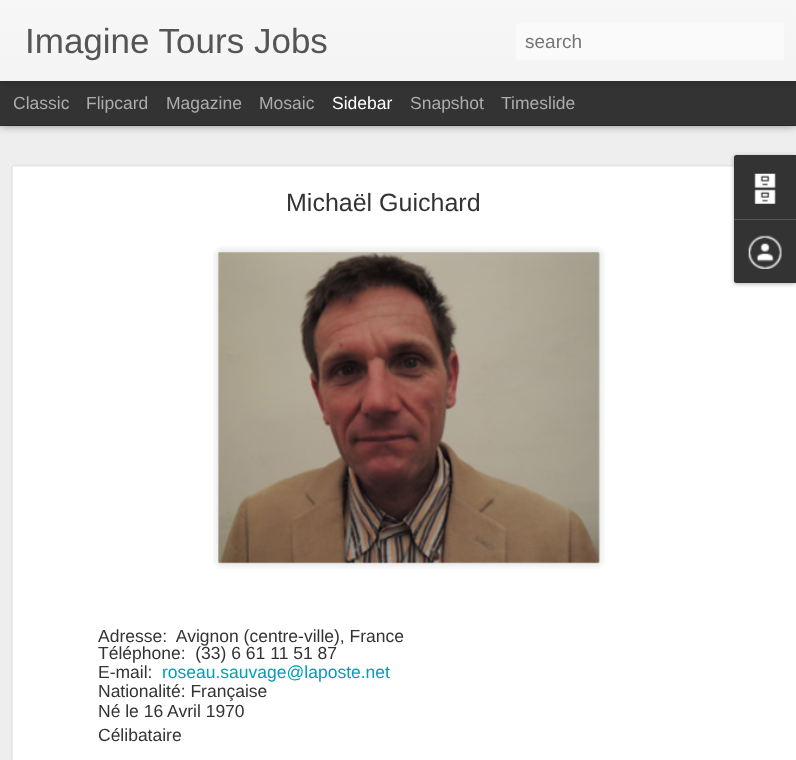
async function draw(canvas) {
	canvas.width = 796;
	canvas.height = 760;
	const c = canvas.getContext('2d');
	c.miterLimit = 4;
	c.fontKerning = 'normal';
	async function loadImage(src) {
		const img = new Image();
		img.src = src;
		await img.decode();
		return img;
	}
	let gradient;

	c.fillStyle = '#333';
	c.fillRect(0, 0, 796, 760);
	c.fillStyle = '#eee';
	c.fillRect(0, 126, 796, 634);
	c.fillStyle = '#00000080';
	c.filter = 'blur(5px)';
	c.beginPath();
	c.rect(0, 81, 796, 44);
	c.fill();
	c.filter = 'none';
	c.fillStyle = '#333';
	c.fillRect(0, 81, 796, 44);
	c.fillStyle = '#0000004d';
	c.filter = 'blur(3px)';
	c.beginPath();
	c.rect(0, 0, 796, 81);
	c.fill();
	c.filter = 'none';
	gradient = c.createLinearGradient(0, 0, 0, 81);
	gradient.addColorStop(0, '#f7f7f7');
	gradient.addColorStop(1, '#f4f4f4');
	c.fillStyle = gradient;
	c.fillRect(0, 0, 796, 81);
	c.font = '35px Liberation Sans';
	c.fillStyle = '#555';
	c.fillText('Imagine Tours Jobs', 25, 53);
	c.fillStyle = '#fafafa';
	c.beginPath();
	c.roundRect(516, 23, 268, 37, 4);
	c.fill();
	c.font = '19px Liberation Sans';
	c.fillStyle = '#757575';
	c.fillText('search', 525, 48);
	c.font = '17.5px Liberation Sans';
	c.fillStyle = '#adadad';
	for (const [text, x, y] of [
		['Classic', 13, 109],
		['Flipcard', 86, 109],
		['Magazine', 166, 109],
		['Mosaic', 259, 109],
	]) {
		c.fillText(text, x, y);
	}
	c.fillStyle = '#fff';
	c.fillText('Sidebar', 332, 109);
	c.fillStyle = '#adadad';
	c.fillText('Snapshot', 410, 109);
	c.fillText('Timeslide', 501, 109);
	c.fillStyle = '#fff';
	c.fillRect(10, 164, 786, 596);
	c.drawImage(await loadImage('img1.png'), 10, 164, 724, 596);
	c.font = '25px Liberation Sans';
	c.fillStyle = '#333';
	c.fillText('Michaël Guichard', 286, 211);
	c.drawImage(await loadImage('img2.png'), 213, 246, 392, 323);
	c.drawImage(await loadImage('img3.png'), 218, 252, 382, 312);
	c.font = '17.5px Liberation Sans';
	for (const [text, x, y] of [
		['Adresse:  Avignon (centre-ville), France', 98, 642],
		['Téléphone:  (33) 6 61 11 51 87', 98, 659],
		['E-mail:', 98, 678],
	]) {
		c.fillText(text, x, y);
	}
	c.fillStyle = '#009eb8';
	c.fillText('roseau.sauvage@laposte.net', 162, 678);
	c.fillStyle = '#333';
	for (const [text, x, y] of [
		['Nationalité: Française', 98, 697],
		['Né le 16 Avril 1970', 98, 717],
		['Célibataire', 98, 741],
	]) {
		c.fillText(text, x, y);
	}
	c.fillStyle = '#0000004d';
	c.filter = 'blur(2px)';
	c.beginPath();
	c.roundRect(734, 156, 62, 128, 2.5);
	c.fill();
	c.filter = 'none';
	c.fillStyle = '#333';
	c.beginPath();
	c.roundRect(734, 155, 62, 64, [2.5, 0, 0, 0]);
	c.fill();
	c.drawImage(await loadImage('img4.png'), 754, 173, 22, 31);
	c.beginPath();
	c.roundRect(734, 219, 62, 64, [0, 0, 0, 2.5]);
	c.fill();
	c.fillStyle = '#585858';
	c.fillRect(734, 219, 62, 1);
	c.drawImage(await loadImage('img5.png'), 748, 235, 34, 34);
}

draw(document.querySelector('canvas'));
